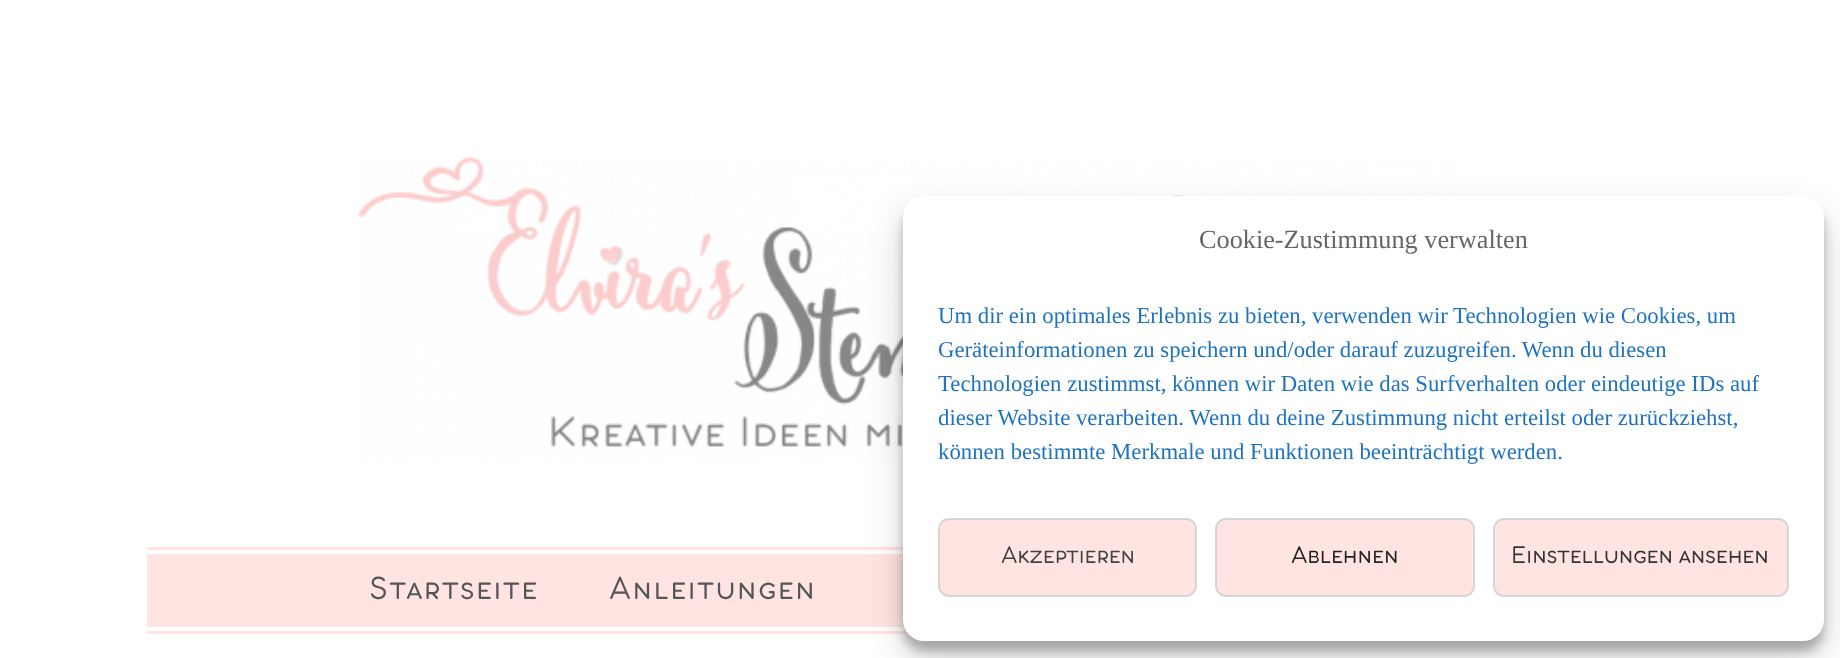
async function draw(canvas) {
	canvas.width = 1840;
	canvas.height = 658;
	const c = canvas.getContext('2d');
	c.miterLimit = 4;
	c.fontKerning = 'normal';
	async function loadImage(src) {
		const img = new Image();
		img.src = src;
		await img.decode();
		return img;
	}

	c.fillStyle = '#fff';
	c.fillRect(0, 0, 1840, 658);
	c.drawImage(await loadImage('img1.png'), 358, 157, 1101, 304);
	for (const [x, y, w, h, color] of [
		[147, 547, 762, 87, '#ffe4e1'],
		[147, 550, 756, 4, '#fff'],
		[147, 627, 760, 4, '#fff'],
	]) {
		c.fillStyle = color;
		c.fillRect(x, y, w, h);
	}
	c.fillStyle = '#0000003b';
	c.filter = 'blur(5px)';
	c.beginPath();
	c.roundRect(903, 207, 921, 444, 21);
	c.fill();
	c.filter = 'none';
	c.fillStyle = '#00000030';
	c.filter = 'blur(17.5px)';
	c.beginPath();
	c.roundRect(903, 214, 921, 444, 21);
	c.fill();
	c.filter = 'none';
	c.fillStyle = '#fff';
	c.beginPath();
	c.roundRect(903, 196, 921, 445, 21);
	c.fill();
	c.font = '26.25px Liberation Serif';
	c.fillStyle = '#666';
	c.fillText('Cookie-Zustimmung verwalten', 1199, 248);
	c.font = '22.75px Liberation Serif';
	c.fillStyle = '#1e73be';
	for (const [text, x, y] of [
		['Um dir ein optimales Erlebnis zu bieten, verwenden wir Technologien wie Cookies, um', 938, 323],
		['Geräteinformationen zu speichern und/oder darauf zuzugreifen. Wenn du diesen', 938, 357],
		['Technologien zustimmst, können wir Daten wie das Surfverhalten oder eindeutige IDs auf', 938, 391],
		['dieser Website verarbeiten. Wenn du deine Zustimmung nicht erteilst oder zurückziehst,', 938, 425],
		['können bestimmte Merkmale und Funktionen beeinträchtigt werden.', 938, 459],
	]) {
		c.fillText(text, x, y);
	}
	c.fillStyle = '#ffe4e1';
	c.beginPath();
	c.roundRect(939, 519, 257, 77, 10);
	c.fill();
	c.strokeStyle = '#d6d6d6';
	c.lineWidth = 2;
	c.stroke();
	c.font = '300 26.25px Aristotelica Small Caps';
	c.fillStyle = '#424242';
	c.fillText('Akzeptieren', 1001, 563);
	c.fillStyle = '#ffe4e1';
	c.beginPath();
	c.roundRect(1216, 519, 258, 77, 10);
	c.fill();
	c.stroke();
	c.fillStyle = '#222';
	c.fillText('Ablehnen', 1291, 563);
	c.fillStyle = '#ffe4e1';
	c.beginPath();
	c.roundRect(1494, 519, 294, 77, 10);
	c.fill();
	c.stroke();
	c.fillStyle = '#333';
	c.fillText('Einstellungen ansehen', 1511, 563);
	c.letterSpacing = '1.75px';
	c.font = '300 35px Aristotelica Small Caps';
	c.fillStyle = '#555';
	c.fillText('Startseite', 369, 599);
	c.fillText('Anleitungen', 609, 599);
}

draw(document.querySelector('canvas'));
